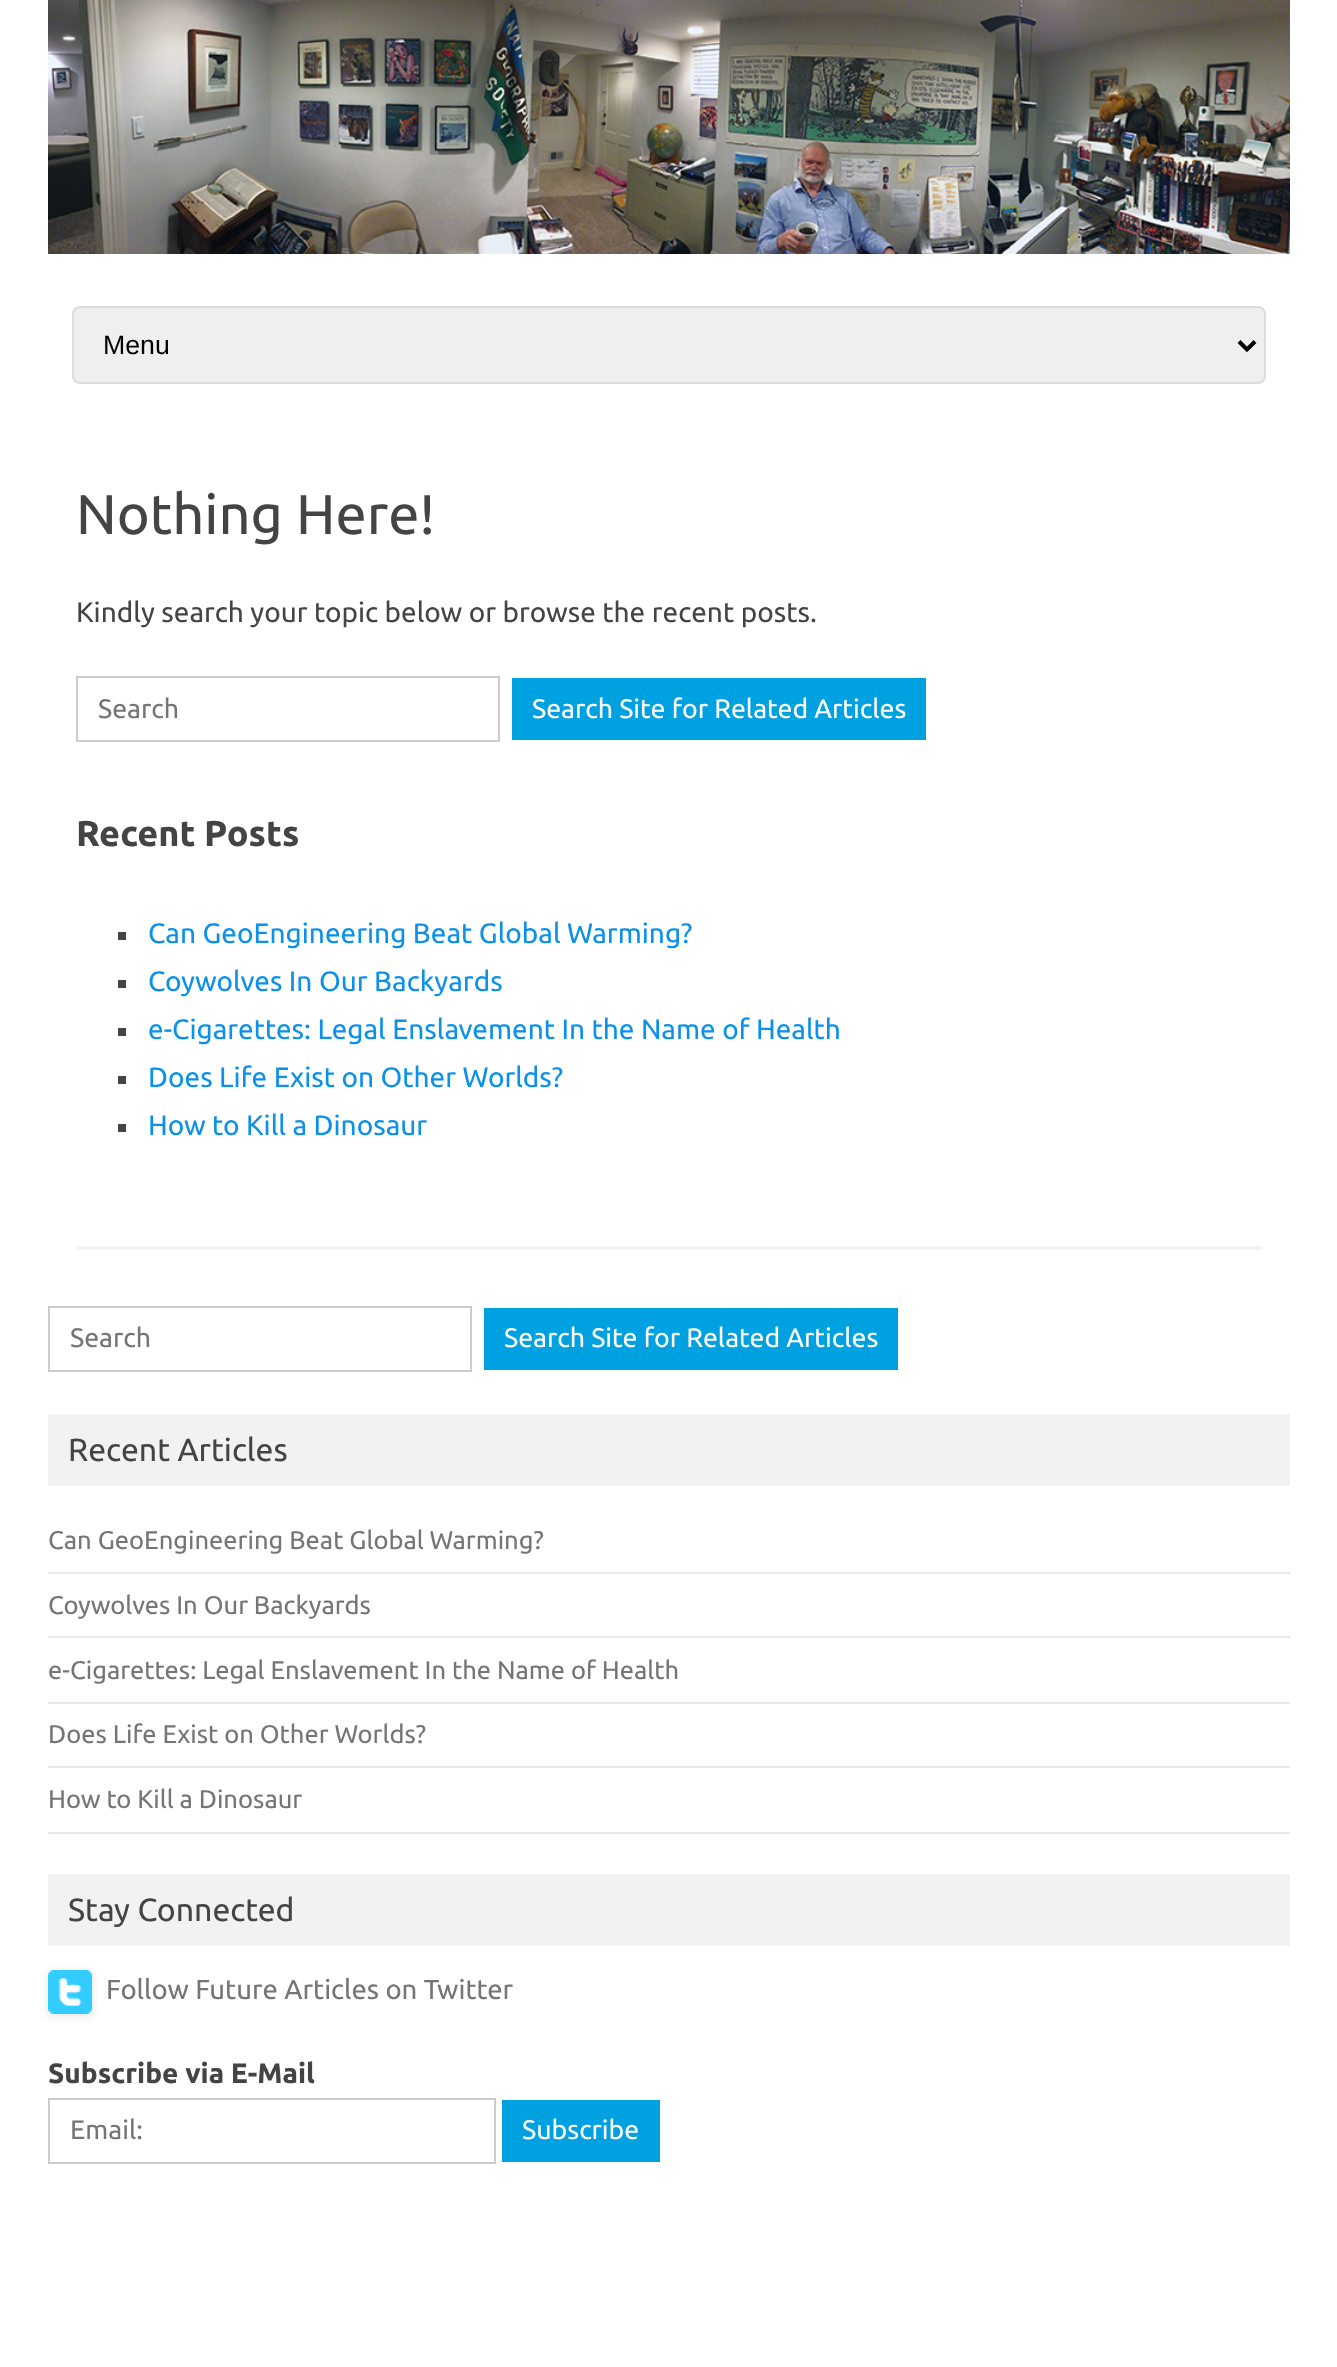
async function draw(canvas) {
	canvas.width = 1337;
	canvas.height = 2367;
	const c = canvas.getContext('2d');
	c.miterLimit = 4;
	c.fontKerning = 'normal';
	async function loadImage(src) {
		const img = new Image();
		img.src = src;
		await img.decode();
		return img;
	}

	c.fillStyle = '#fff';
	c.fillRect(0, 0, 1337, 2367);
	c.drawImage(await loadImage('img1.png'), 48, 0, 1242, 254);
	c.fillStyle = '#efefef';
	c.beginPath();
	c.roundRect(73, 307, 1192, 76, 7);
	c.fill();
	c.strokeStyle = '#ddd';
	c.lineWidth = 2;
	c.stroke();
	c.beginPath();
	c.moveTo(1239, 341.5);
	c.lineTo(1247, 349.5);
	c.lineTo(1255, 341.5);
	c.strokeStyle = '#000';
	c.lineWidth = 4;
	c.stroke();
	c.font = '26.7px Liberation Sans';
	c.fillStyle = '#000';
	c.fillText('Menu', 103, 354);
	c.fillStyle = '#f3f3f3';
	c.fillRect(76, 1246, 1186, 4);
	c.font = '56px Ubuntu';
	c.fillStyle = '#444';
	c.fillText('Nothing Here!', 76, 534);
	c.font = '28px Ubuntu';
	c.fillText('Kindly search your topic below or browse the recent posts.', 76, 622);
	c.strokeStyle = '#ccc';
	c.lineWidth = 2;
	c.strokeRect(77, 677, 422, 64);
	c.font = '26.7px Ubuntu';
	c.fillStyle = '#757575';
	c.fillText('Search', 98, 718);
	c.fillStyle = '#00a1e0';
	c.fillRect(512, 678, 414, 62);
	c.fillStyle = '#fff';
	c.fillText('Search Site for Related Articles', 532, 718);
	c.font = 'bold 36px Ubuntu';
	c.fillStyle = '#444';
	c.fillText('Recent Posts', 76, 846);
	c.fillRect(118, 932, 8, 8);
	c.font = '28px Ubuntu';
	c.fillStyle = '#0b91ea';
	c.fillText('Can GeoEngineering Beat Global Warming?', 148, 943);
	c.fillStyle = '#444';
	c.fillRect(118, 980, 8, 8);
	c.fillStyle = '#0b91ea';
	c.fillText('Coywolves In Our Backyards', 148, 991);
	c.fillStyle = '#444';
	c.fillRect(118, 1028, 8, 8);
	c.fillStyle = '#0b91ea';
	c.fillText('e-Cigarettes: Legal Enslavement In the Name of Health', 148, 1039);
	c.fillStyle = '#444';
	c.fillRect(118, 1076, 8, 8);
	c.fillStyle = '#0b91ea';
	c.fillText('Does Life Exist on Other Worlds?', 148, 1087);
	c.fillStyle = '#444';
	c.fillRect(118, 1124, 8, 8);
	c.fillStyle = '#0b91ea';
	c.fillText('How to Kill a Dinosaur', 148, 1135);
	c.strokeRect(49, 1307, 422, 64);
	c.font = '26.7px Ubuntu';
	c.fillStyle = '#757575';
	c.fillText('Search', 70, 1347);
	c.fillStyle = '#00a1e0';
	c.fillRect(484, 1308, 414, 62);
	c.fillStyle = '#fff';
	c.fillText('Search Site for Related Articles', 504, 1347);
	c.fillStyle = '#f2f2f2';
	c.fillRect(48, 1414, 1242, 72);
	c.font = '32px Ubuntu';
	c.fillStyle = '#444';
	c.fillText('Recent Articles', 68, 1461);
	c.fillStyle = '#e9e9e9';
	c.fillRect(48, 1572, 1242, 2);
	c.font = '25.5px Ubuntu';
	c.fillStyle = '#757575';
	c.fillText('Can GeoEngineering Beat Global Warming?', 48, 1549);
	c.fillStyle = '#e9e9e9';
	c.fillRect(48, 1636, 1242, 2);
	c.fillStyle = '#757575';
	c.fillText('Coywolves In Our Backyards', 48, 1614);
	c.fillStyle = '#e9e9e9';
	c.fillRect(48, 1702, 1242, 2);
	c.fillStyle = '#757575';
	c.fillText('e-Cigarettes: Legal Enslavement In the Name of Health', 48, 1679);
	c.fillStyle = '#e9e9e9';
	c.fillRect(48, 1766, 1242, 2);
	c.fillStyle = '#757575';
	c.fillText('Does Life Exist on Other Worlds?', 48, 1743);
	c.fillStyle = '#e9e9e9';
	c.fillRect(48, 1832, 1242, 2);
	c.fillStyle = '#757575';
	c.fillText('How to Kill a Dinosaur', 48, 1808);
	c.fillStyle = '#f2f2f2';
	c.fillRect(48, 1874, 1242, 72);
	c.font = '32px Ubuntu';
	c.fillStyle = '#444';
	c.fillText('Stay Connected', 68, 1921);
	c.save();
	c.beginPath();
	c.moveTo(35, 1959);
	c.lineTo(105, 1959);
	c.lineTo(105, 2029);
	c.lineTo(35, 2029);
	c.closePath();
	c.moveTo(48, 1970);
	c.lineTo(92, 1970);
	c.lineTo(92, 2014);
	c.lineTo(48, 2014);
	c.closePath();
	c.clip('evenodd');
	c.fillStyle = '#0000001a';
	c.filter = 'blur(4px)';
	c.beginPath();
	c.rect(48, 1972, 44, 44);
	c.fill();
	c.filter = 'none';
	c.restore();
	c.drawImage(await loadImage('img2.png'), 48, 1970, 44, 44);
	c.font = '27.5px Ubuntu';
	c.fillStyle = '#757575';
	c.fillText('Follow Future Articles on Twitter', 106, 1999);
	c.font = 'bold 28px Ubuntu';
	c.fillStyle = '#444';
	c.fillText('Subscribe via E-Mail', 48, 2083);
	c.strokeRect(49, 2099, 446, 64);
	c.font = '26.7px Ubuntu';
	c.fillStyle = '#757575';
	c.fillText('Email:', 70, 2139);
	c.fillStyle = '#00a1e0';
	c.fillRect(502, 2100, 158, 62);
	c.fillStyle = '#fff';
	c.fillText('Subscribe', 522, 2139);
}

draw(document.querySelector('canvas'));
